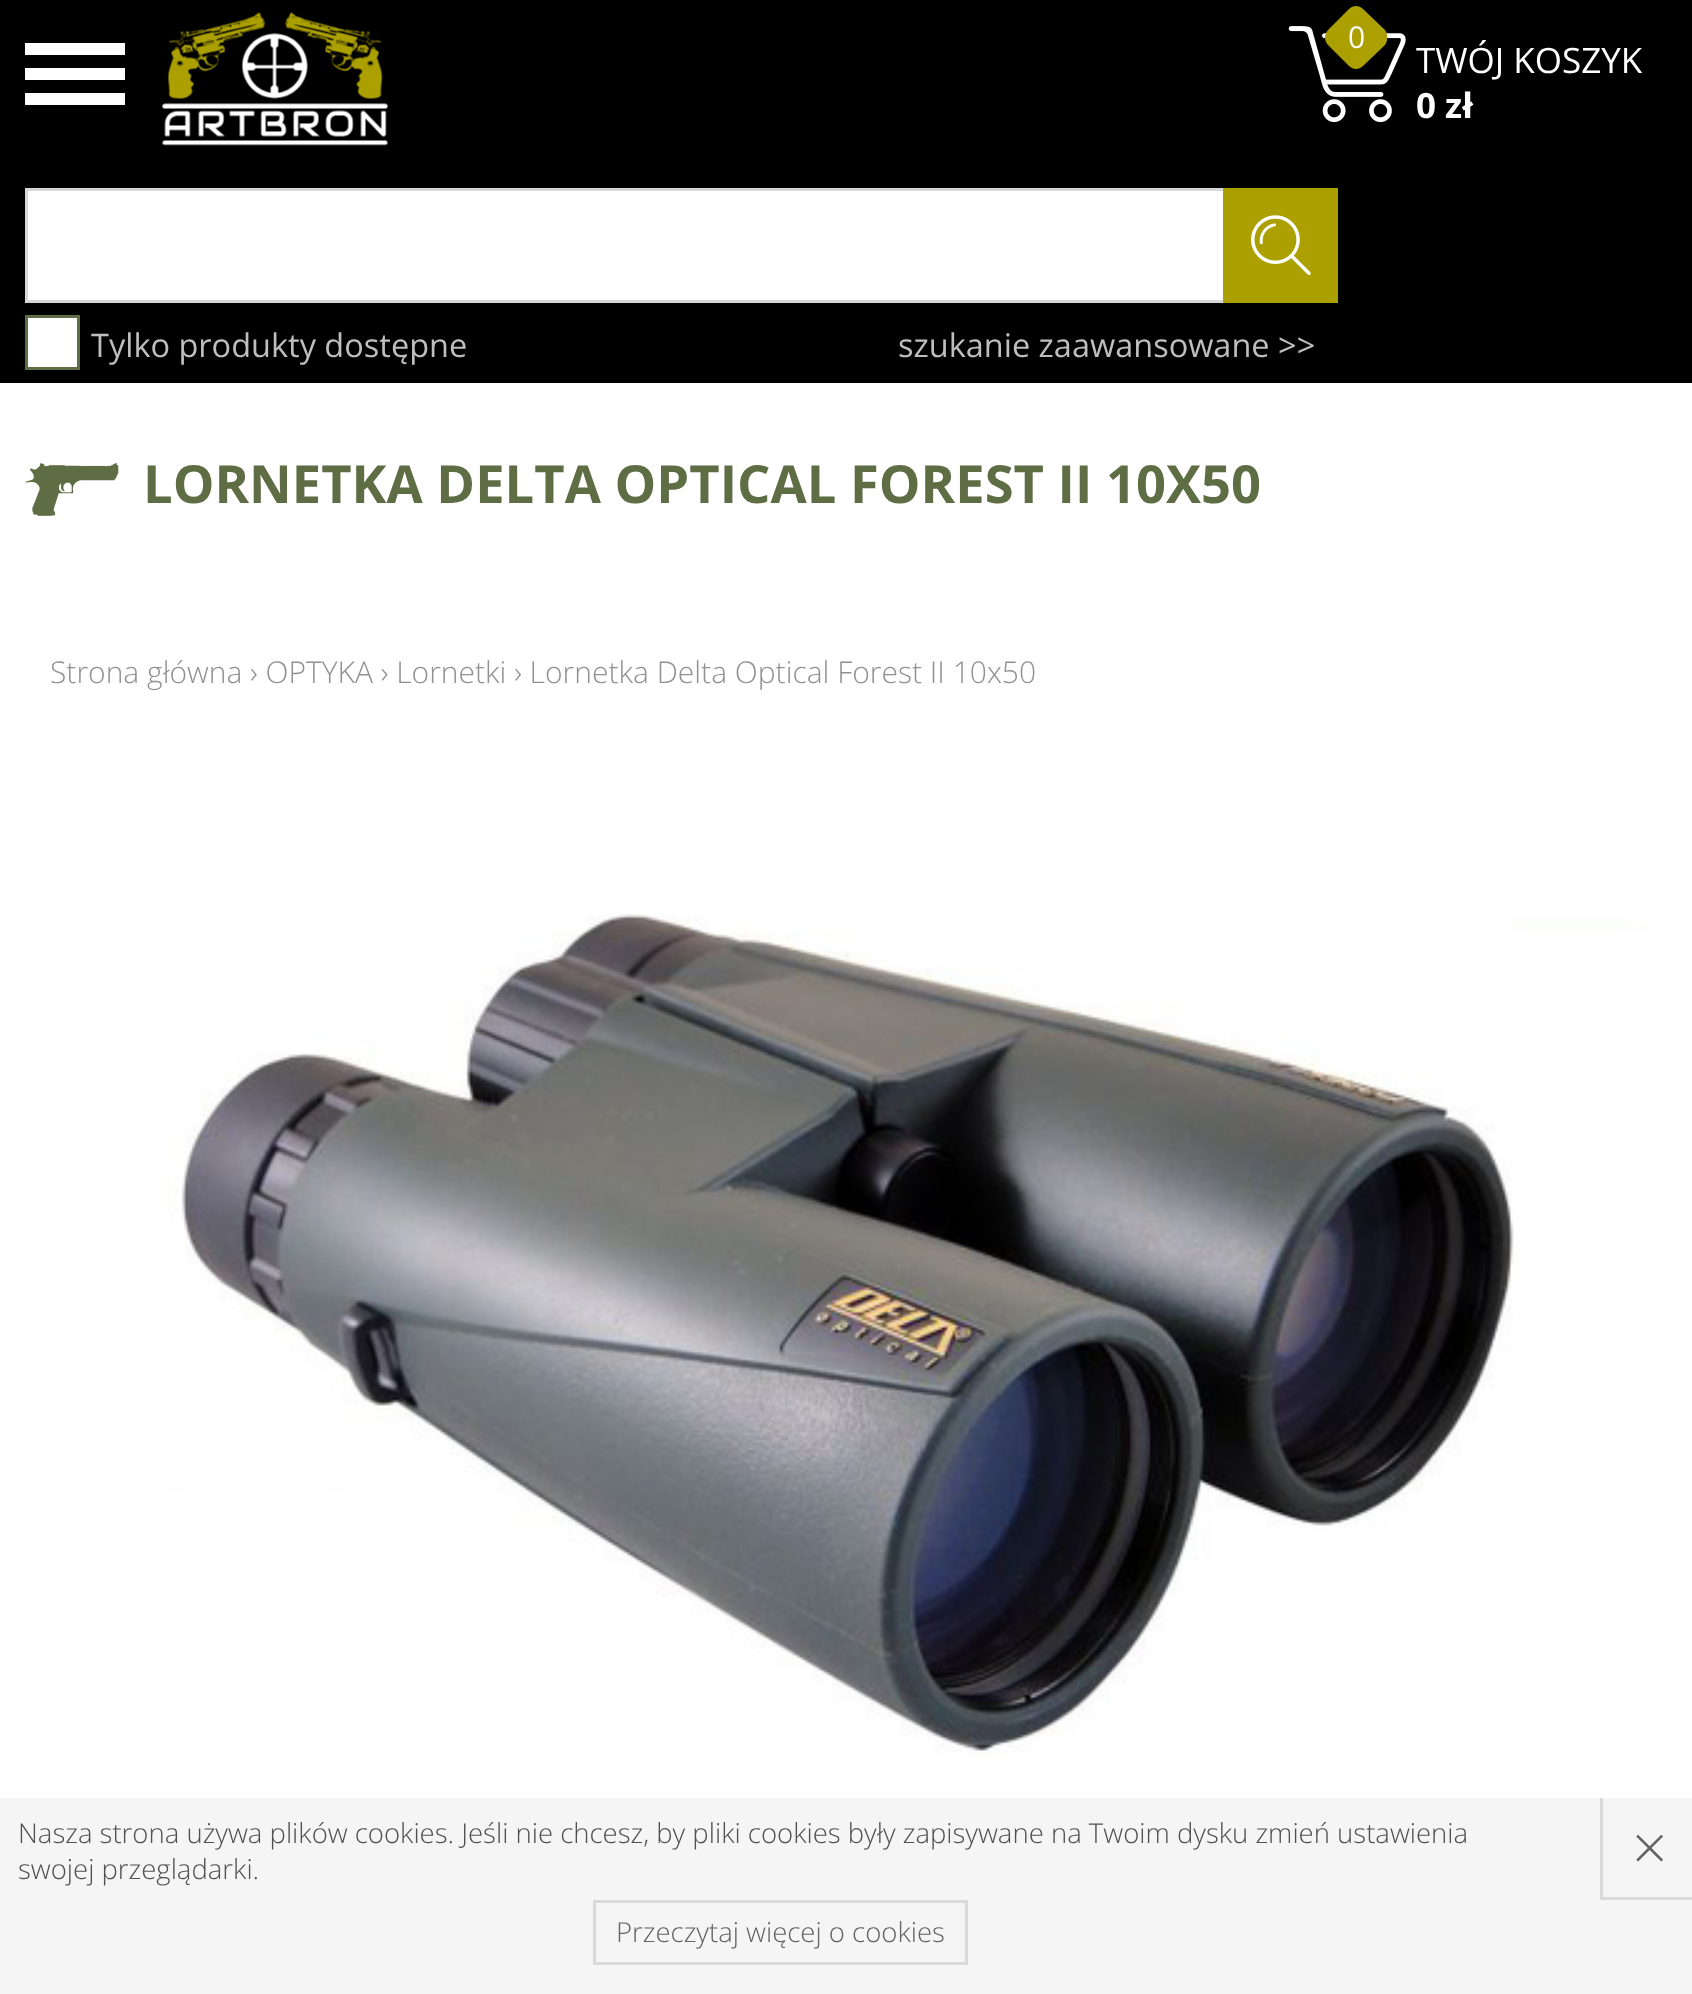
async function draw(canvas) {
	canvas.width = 1692;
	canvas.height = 1994;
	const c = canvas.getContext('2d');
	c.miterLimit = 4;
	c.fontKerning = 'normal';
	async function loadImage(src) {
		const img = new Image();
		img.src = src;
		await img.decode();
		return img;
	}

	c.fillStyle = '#000';
	c.fillRect(0, 0, 1692, 1994);
	for (const [x, y, w, h, color] of [
		[25, 68, 100, 12, '#fff'],
		[25, 43, 100, 12, '#fff'],
		[25, 93, 100, 12, '#fff'],
	]) {
		c.fillStyle = color;
		c.fillRect(x, y, w, h);
	}
	c.drawImage(await loadImage('img1.png'), 162, 12, 226, 134);
	c.drawImage(await loadImage('img2.png'), 1288, 26, 118, 97);
	c.fillStyle = '#aba000';
	c.beginPath();
	c.moveTo(1363, 9);
	c.lineTo(1385, 30);
	c.bezierCurveTo(1388, 34, 1388, 41, 1385, 45);
	c.lineTo(1363, 66);
	c.bezierCurveTo(1359, 70, 1353, 70, 1349, 66);
	c.lineTo(1328, 45);
	c.bezierCurveTo(1324, 41, 1324, 34, 1328, 30);
	c.lineTo(1349, 9);
	c.bezierCurveTo(1353, 5, 1359, 5, 1363, 9);
	c.closePath();
	c.fill();
	c.font = '30px Open Sans';
	c.fillStyle = '#fff';
	c.fillText('0', 1348, 48);
	c.font = '35px Open Sans';
	c.fillText('TWÓJ KOSZYK', 1416, 73);
	c.font = 'bold 35px Open Sans';
	c.fillText('0 zł', 1416, 118);
	c.fillRect(28, 191, 1195, 109);
	c.strokeStyle = '#d7d7d7';
	c.lineWidth = 3;
	c.strokeRect(26.5, 189.5, 1287, 112);
	c.fillStyle = '#aba000';
	c.beginPath();
	c.rect(1224.5, 189.5, 112, 112);
	c.fill();
	c.strokeStyle = '#aba000';
	c.stroke();
	c.drawImage(await loadImage('img3.png'), 1251, 215, 60, 60);
	c.fillStyle = '#fff';
	c.beginPath();
	c.rect(26.5, 316.5, 52, 52);
	c.fill();
	c.strokeStyle = '#5f6d45';
	c.stroke();
	c.font = '32.5px Open Sans';
	c.fillStyle = '#bebebe';
	c.fillText('Tylko produkty dostępne', 91, 357);
	c.fillText('szukanie zaawansowane >>', 898, 357);
	c.fillStyle = '#fff';
	c.fillRect(0, 383, 1692, 1415);
	c.drawImage(await loadImage('img4.png'), 25, 463, 94, 53);
	c.font = 'bold 52.5px Open Sans';
	c.fillStyle = '#5f6d45';
	c.fillText('LORNETKA DELTA OPTICAL FOREST II 10X50', 143, 503);
	c.font = '300 30px Open Sans';
	c.fillStyle = '#919191';
	c.fillText('Strona główna › OPTYKA › Lornetki › Lornetka Delta Optical Forest II 10x50', 50, 683);
	c.drawImage(await loadImage('img5.png'), 168, 914, 1479, 842);
	c.fillStyle = '#f5f5f5';
	c.fillRect(0, 1798, 1692, 196);
	c.font = '300 27.5px Open Sans';
	c.fillStyle = '#505050';
	c.fillText('Nasza strona używa plików cookies. Jeśli nie chcesz, by pliki cookies były zapisywane na Twoim dysku zmień ustawienia', 18, 1843);
	c.save();
	c.beginPath();
	c.rect(0, 1798, 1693, 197);
	c.clip();
	c.strokeStyle = '#d9d9d9';
	c.strokeRect(1601.5, 1791.5, 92, 107);
	c.restore();
	c.font = '300 62px Open Sans';
	c.fillStyle = '#636363';
	c.fillText('×', 1632, 1870);
	c.font = '300 27.5px Open Sans';
	c.fillStyle = '#505050';
	c.fillText('swojej przeglądarki.', 18, 1879);
	c.strokeStyle = '#d9d9d9';
	c.strokeRect(594.5, 1901.5, 372, 62);
	c.fillStyle = '#636363';
	c.fillText('Przeczytaj więcej o cookies', 616, 1942);
}

draw(document.querySelector('canvas'));
